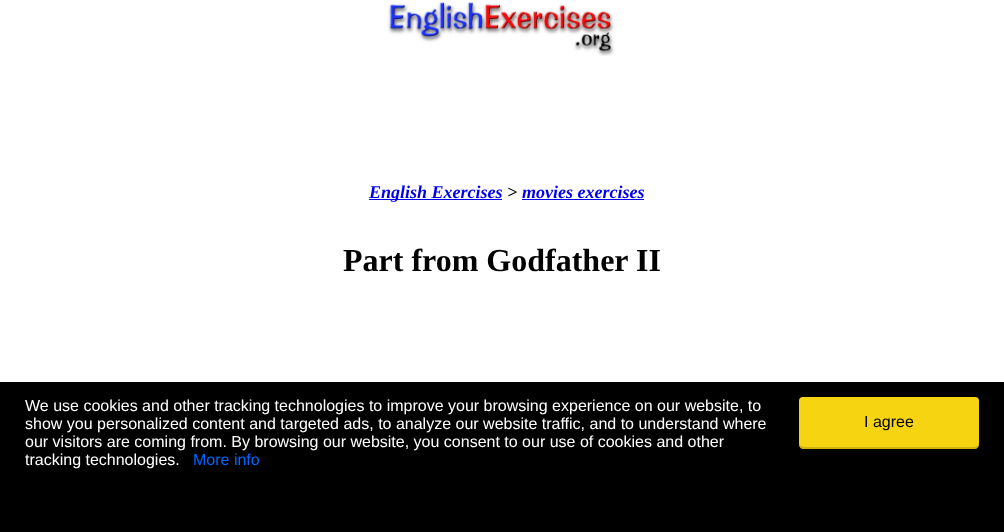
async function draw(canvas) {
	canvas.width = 1004;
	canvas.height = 532;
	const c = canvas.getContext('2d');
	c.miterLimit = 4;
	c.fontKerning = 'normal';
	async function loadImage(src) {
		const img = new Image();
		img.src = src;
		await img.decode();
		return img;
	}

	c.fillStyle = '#fff';
	c.fillRect(0, 0, 1004, 532);
	c.drawImage(await loadImage('img1.png'), 387, 0, 228, 56);
	c.fillStyle = '#00e';
	c.fillRect(369, 199, 133, 1);
	c.font = 'italic bold 18px Liberation Serif';
	c.fillText('English Exercises', 369, 198);
	c.fillStyle = '#000';
	c.fillText('>', 507, 198);
	c.fillStyle = '#00e';
	c.fillText('movies exercises', 522, 198);
	c.fillRect(522, 199, 122, 1);
	c.font = 'bold 32px Liberation Serif';
	c.fillStyle = '#000';
	c.fillText('Part from Godfather II', 343, 271);
	c.fillRect(0, 382, 1004, 150);
	c.font = '16px Liberation Sans';
	c.fillStyle = '#fff';
	for (const [text, x, y] of [
		['We use cookies and other tracking technologies to improve your browsing experience on our website, to', 25, 411],
		['show you personalized content and targeted ads, to analyze our website traffic, and to understand where', 25, 429],
		['our visitors are coming from. By browsing our website, you consent to our use of cookies and other', 25, 447],
		['tracking technologies.', 25, 465],
	]) {
		c.fillText(text, x, y);
	}
	c.fillStyle = '#06f';
	c.fillText('More info', 193, 465);
	c.fillStyle = '#cfb20c';
	c.beginPath();
	c.moveTo(799, 443);
	c.lineTo(799, 445);
	c.bezierCurveTo(799, 447, 801, 449, 803, 449);
	c.lineTo(975, 449);
	c.bezierCurveTo(977, 449, 979, 447, 979, 445);
	c.lineTo(979, 443);
	c.bezierCurveTo(979, 445, 977, 447, 975, 447);
	c.lineTo(803, 447);
	c.bezierCurveTo(801, 447, 799, 445, 799, 443);
	c.closePath();
	c.fill();
	c.fillStyle = '#f7d411';
	c.beginPath();
	c.roundRect(799, 397, 180, 50, 4);
	c.fill();
	c.fillStyle = '#000';
	c.fillText('I agree', 864, 427);
}

draw(document.querySelector('canvas'));
